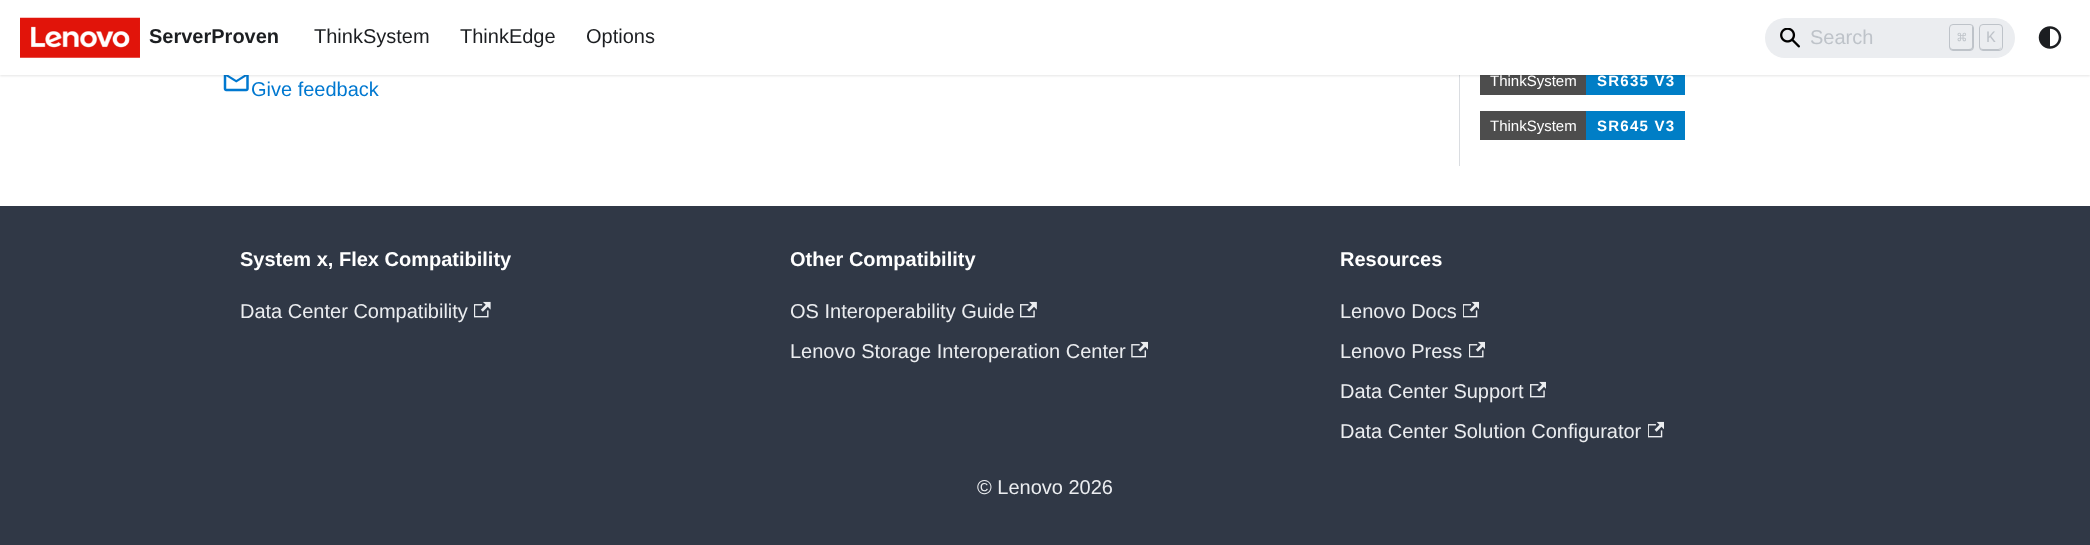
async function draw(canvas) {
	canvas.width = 2090;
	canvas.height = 545;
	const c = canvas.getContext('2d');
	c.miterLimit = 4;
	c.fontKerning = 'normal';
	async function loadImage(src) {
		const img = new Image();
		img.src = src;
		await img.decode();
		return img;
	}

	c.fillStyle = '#fff';
	c.fillRect(0, 0, 2090, 545);
	c.drawImage(await loadImage('img4.png'), 223, 75, 26, 17);
	for (const [x, y, w, h, color] of [
		[1459, 75, 1, 91, '#dadde1'],
		[1480, 75, 106, 20, '#4d4d4d'],
		[1586, 75, 99, 20, '#007ec6'],
	]) {
		c.fillStyle = color;
		c.fillRect(x, y, w, h);
	}
	c.fillStyle = '#0000001a';
	c.filter = 'blur(1px)';
	c.beginPath();
	c.rect(0, 1, 2090, 75);
	c.fill();
	c.filter = 'none';
	c.fillStyle = '#fff';
	c.fillRect(0, 0, 2090, 75);
	c.drawImage(await loadImage('img1.png'), 20, 17, 120, 41);
	c.font = 'bold 20px Liberation Sans';
	c.fillStyle = '#1c1e21';
	c.fillText('ServerProven', 149, 43);
	c.font = '20px Liberation Sans';
	for (const [text, x, y] of [
		['ThinkSystem', 314, 43],
		['ThinkEdge', 460, 43],
		['Options', 586, 43],
	]) {
		c.fillText(text, x, y);
	}
	c.fillStyle = '#ebedf0';
	c.beginPath();
	c.roundRect(1765, 18, 250, 40, 20);
	c.fill();
	c.drawImage(await loadImage('img2.png'), 1780, 28, 20, 20);
	c.fillStyle = '#bec3c9';
	c.fillText('Search', 1810, 44);
	c.beginPath();
	c.moveTo(1950, 46);
	c.lineTo(1950, 47.5);
	c.bezierCurveTo(1950, 49, 1951, 50, 1952.5, 50);
	c.lineTo(1970.5, 50);
	c.bezierCurveTo(1972, 50, 1973, 49, 1973, 47.5);
	c.lineTo(1973, 27.5);
	c.bezierCurveTo(1973, 26.5, 1972.5, 26, 1972, 25.5);
	c.lineTo(1972, 39.5);
	c.bezierCurveTo(1972, 49.5, 1973.5, 49, 1964.5, 49);
	c.lineTo(1952.5, 49);
	c.bezierCurveTo(1950.5, 48.5, 1950, 47.5, 1950, 46);
	c.closePath();
	c.fill();
	c.beginPath();
	c.roundRect(1949.5, 24.5, 24, 26, 3.5);
	c.strokeStyle = '#bec3c9';
	c.stroke();
	c.font = '16px DejaVu Sans Mono';
	c.fillText('⌘', 1957, 43);
	c.beginPath();
	c.moveTo(1980, 46);
	c.bezierCurveTo(1980, 50, 1981.5, 50, 1985, 50);
	c.lineTo(1996, 50);
	c.bezierCurveTo(1999.5, 50, 2001, 50, 2001, 46);
	c.bezierCurveTo(2001, 48, 2000, 49, 1998, 49);
	c.lineTo(1983, 49);
	c.bezierCurveTo(1981, 49, 1980, 48, 1980, 46);
	c.closePath();
	c.fill();
	c.beginPath();
	c.roundRect(1979.5, 24.5, 23, 26, 3.5);
	c.stroke();
	c.font = '16px Liberation Mono';
	c.fillText('K', 1986, 42);
	c.drawImage(await loadImage('img3.png'), 2038, 26, 24, 23);
	c.font = '20px Liberation Sans';
	c.fillStyle = '#0078d0';
	c.fillText('Give feedback', 251, 96);
	c.font = '15px Liberation Sans';
	c.fillStyle = '#fff';
	c.fillText('ThinkSystem', 1490, 86);
	c.letterSpacing = '1.25px';
	c.font = 'bold 15px Liberation Sans';
	c.fillText('SR635 V3', 1597, 86);
	c.fillStyle = '#4d4d4d';
	c.fillRect(1480, 111, 106, 29);
	c.letterSpacing = '0px';
	c.font = '15px Liberation Sans';
	c.fillStyle = '#fff';
	c.fillText('ThinkSystem', 1490, 131);
	c.fillStyle = '#007ec6';
	c.fillRect(1586, 111, 99, 29);
	c.letterSpacing = '1.25px';
	c.font = 'bold 15px Liberation Sans';
	c.fillStyle = '#fff';
	c.fillText('SR645 V3', 1597, 131);
	c.fillStyle = '#303846';
	c.fillRect(0, 206, 2090, 339);
	c.letterSpacing = '0px';
	c.font = 'bold 20px Liberation Sans';
	c.fillStyle = '#fff';
	c.fillText('System x, Flex Compatibility', 240, 266);
	c.font = '20px Liberation Sans';
	c.fillStyle = '#ebedf0';
	c.fillText('Data Center Compatibility', 240, 318);
	c.drawImage(await loadImage('img5.png'), 474, 301, 17, 17);
	c.font = 'bold 20px Liberation Sans';
	c.fillStyle = '#fff';
	c.fillText('Other Compatibility', 790, 266);
	c.font = '20px Liberation Sans';
	c.fillStyle = '#ebedf0';
	c.fillText('OS Interoperability Guide', 790, 318);
	c.drawImage(await loadImage('img6.png'), 1020, 301, 17, 17);
	c.fillText('Lenovo Storage Interoperation Center', 790, 358);
	c.drawImage(await loadImage('img7.png'), 1131, 341, 17, 17);
	c.font = 'bold 20px Liberation Sans';
	c.fillStyle = '#fff';
	c.fillText('Resources', 1340, 266);
	c.font = '20px Liberation Sans';
	c.fillStyle = '#ebedf0';
	c.fillText('Lenovo Docs', 1340, 318);
	c.drawImage(await loadImage('img8.png'), 1463, 301, 16, 17);
	c.fillText('Lenovo Press', 1340, 358);
	c.drawImage(await loadImage('img9.png'), 1469, 341, 16, 17);
	c.fillText('Data Center Support', 1340, 398);
	c.drawImage(await loadImage('img10.png'), 1530, 381, 16, 17);
	c.fillText('Data Center Solution Configurator', 1340, 438);
	c.drawImage(await loadImage('img8.png'), 1648, 421, 16, 17);
	c.fillText('© Lenovo 2026', 977, 494);
}

draw(document.querySelector('canvas'));
